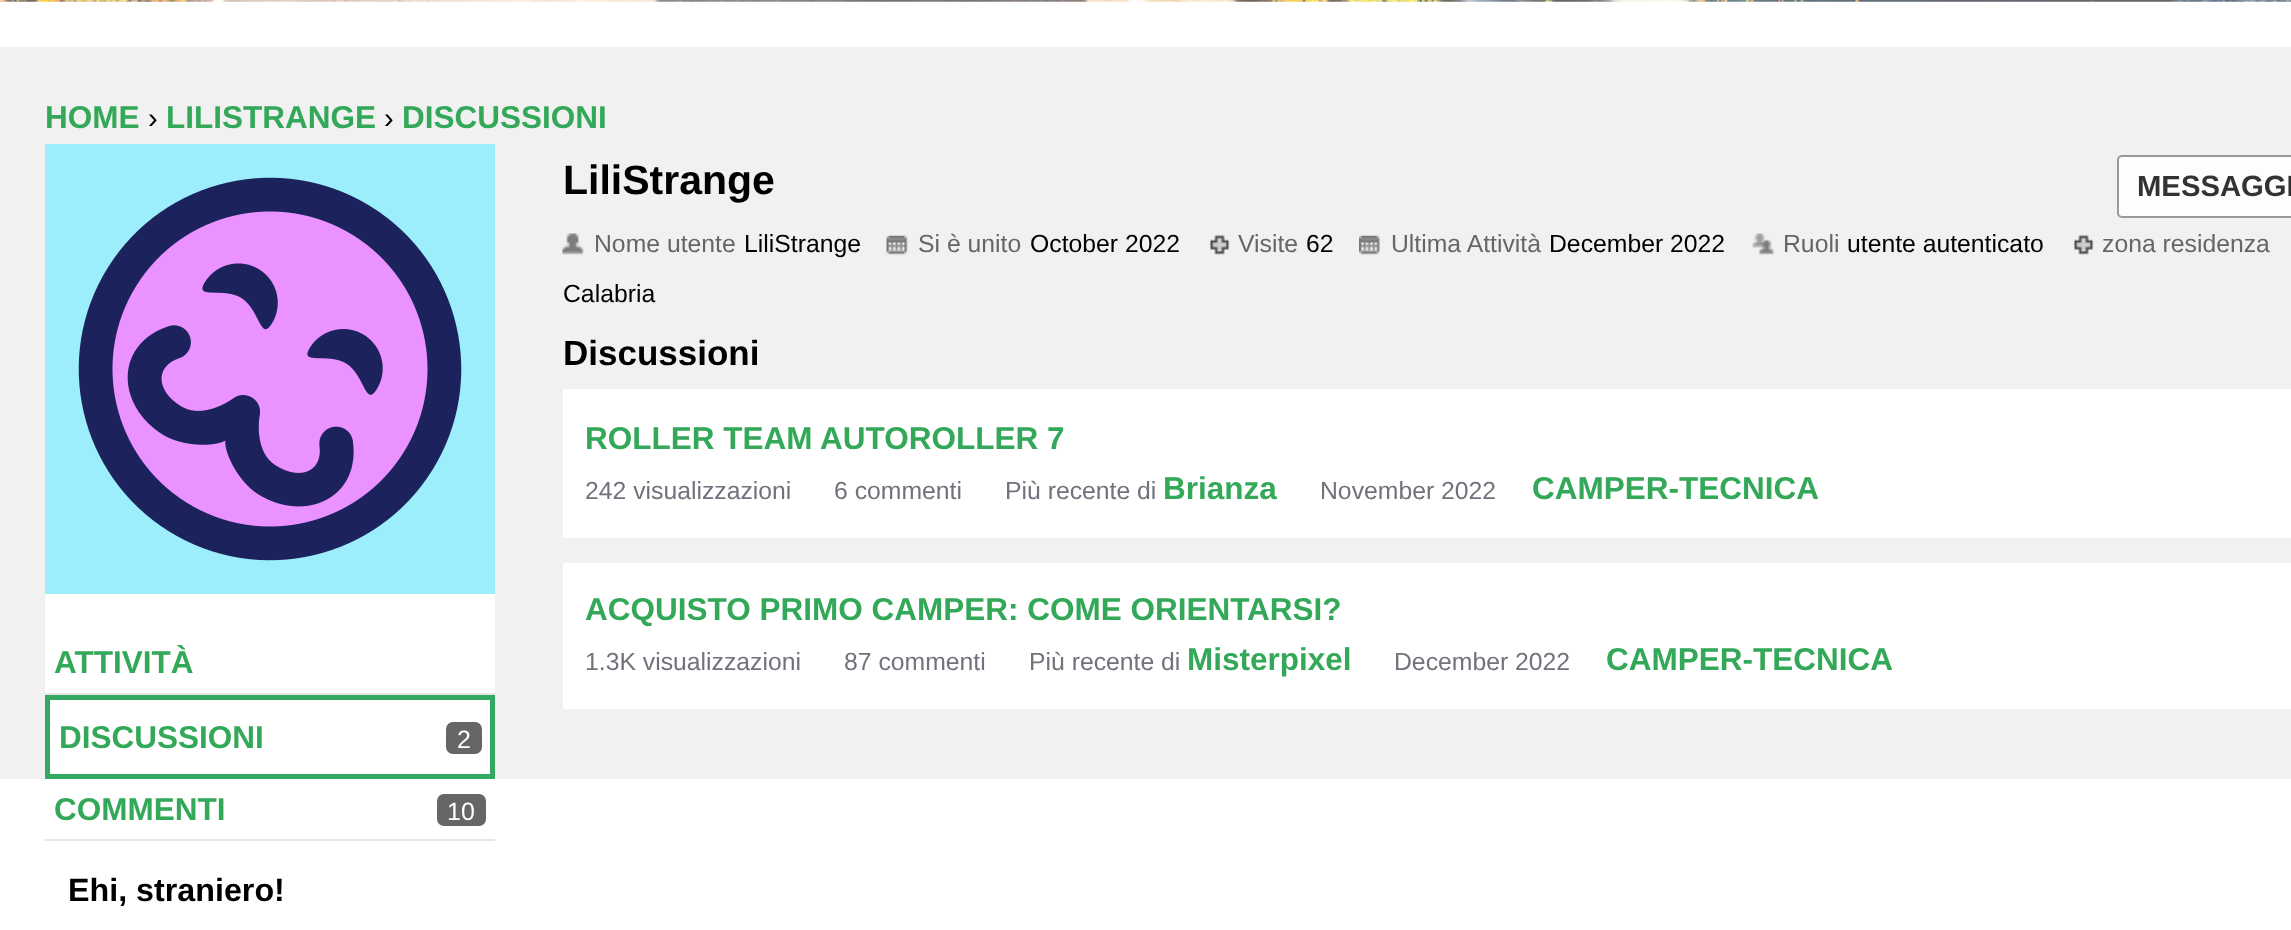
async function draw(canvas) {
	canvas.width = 2291;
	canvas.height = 930;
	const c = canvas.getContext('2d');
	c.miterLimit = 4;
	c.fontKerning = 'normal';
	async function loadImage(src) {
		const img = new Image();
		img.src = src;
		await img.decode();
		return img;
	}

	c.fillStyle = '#fff';
	c.fillRect(0, 0, 2291, 930);
	c.drawImage(await loadImage('img1.png'), 0, 0, 2291, 2);
	c.fillStyle = '#f1f1f1';
	c.fillRect(0, 47, 2291, 732);
	c.font = 'bold 31.5px Liberation Sans';
	c.fillStyle = '#33a858';
	c.fillText('HOME', 45, 128);
	c.font = '29.25px Liberation Sans';
	c.fillStyle = '#000';
	c.fillText('›', 148, 128);
	c.font = 'bold 31.5px Liberation Sans';
	c.fillStyle = '#33a858';
	c.fillText('LILISTRANGE', 166, 128);
	c.font = '29.25px Liberation Sans';
	c.fillStyle = '#000';
	c.fillText('›', 384, 128);
	c.font = 'bold 31.5px Liberation Sans';
	c.fillStyle = '#33a858';
	c.fillText('DISCUSSIONI', 402, 128);
	c.font = 'bold 41px Liberation Sans';
	c.fillStyle = '#000';
	c.fillText('LiliStrange', 563, 194);
	c.drawImage(await loadImage('img2.png'), 562, 233, 22, 22);
	c.font = '24.75px Liberation Sans';
	c.fillStyle = '#666';
	c.fillText('Nome utente', 594, 252);
	c.fillStyle = '#000';
	c.fillText('LiliStrange', 744, 252);
	c.drawImage(await loadImage('img3.png'), 886, 235, 22, 20);
	c.fillStyle = '#666';
	c.fillText('Si è unito', 918, 252);
	c.fillStyle = '#000';
	c.fillText('October 2022', 1030, 252);
	c.drawImage(await loadImage('img4.png'), 1210, 235, 20, 20);
	c.fillStyle = '#666';
	c.fillText('Visite', 1238, 252);
	c.fillStyle = '#000';
	c.fillText('62', 1306, 252);
	c.drawImage(await loadImage('img5.png'), 1359, 235, 21, 20);
	c.fillStyle = '#666';
	c.fillText('Ultima Attività', 1391, 252);
	c.fillStyle = '#000';
	c.fillText('December 2022', 1549, 252);
	c.drawImage(await loadImage('img6.png'), 1752, 233, 22, 22);
	c.fillStyle = '#666';
	c.fillText('Ruoli', 1783, 252);
	c.fillStyle = '#000';
	c.fillText('utente autenticato', 1847, 252);
	c.drawImage(await loadImage('img4.png'), 2074, 235, 20, 20);
	c.fillStyle = '#666';
	c.fillText('zona residenza', 2102, 252);
	c.fillStyle = '#000';
	c.fillText('Calabria', 563, 302);
	c.font = 'bold 35px Liberation Sans';
	c.fillText('Discussioni', 563, 365);
	c.fillStyle = '#fff';
	c.fillRect(563, 389, 1728, 149);
	c.font = 'bold 31.5px Liberation Sans';
	c.fillStyle = '#33a858';
	c.fillText('ROLLER TEAM AUTOROLLER 7', 585, 449);
	c.font = '24.75px Liberation Sans';
	c.fillStyle = '#70727c';
	for (const [text, x, y] of [
		['242 visualizzazioni', 585, 499],
		['6 commenti', 834, 499],
		['Più recente di', 1005, 499],
	]) {
		c.fillText(text, x, y);
	}
	c.font = 'bold 31.5px Liberation Sans';
	c.fillStyle = '#33a858';
	c.fillText('Brianza', 1163, 499);
	c.font = '24.75px Liberation Sans';
	c.fillStyle = '#70727c';
	c.fillText('November 2022', 1320, 499);
	c.font = 'bold 31.5px Liberation Sans';
	c.fillStyle = '#33a858';
	c.fillText('CAMPER-TECNICA', 1532, 499);
	c.fillStyle = '#fff';
	c.fillRect(563, 563, 1728, 146);
	c.fillStyle = '#33a858';
	c.fillText('ACQUISTO PRIMO CAMPER: COME ORIENTARSI?', 585, 620);
	c.font = '24.75px Liberation Sans';
	c.fillStyle = '#70727c';
	for (const [text, x, y] of [
		['1.3K visualizzazioni', 585, 670],
		['87 commenti', 844, 670],
		['Più recente di', 1029, 670],
	]) {
		c.fillText(text, x, y);
	}
	c.font = 'bold 31.5px Liberation Sans';
	c.fillStyle = '#33a858';
	c.fillText('Misterpixel', 1187, 670);
	c.font = '24.75px Liberation Sans';
	c.fillStyle = '#70727c';
	c.fillText('December 2022', 1394, 670);
	c.font = 'bold 31.5px Liberation Sans';
	c.fillStyle = '#33a858';
	c.fillText('CAMPER-TECNICA', 1606, 670);
	c.fillStyle = '#fdfdfd';
	c.beginPath();
	c.roundRect(2118, 156, 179, 61, 4);
	c.fill();
	c.strokeStyle = '#999';
	c.lineWidth = 2;
	c.stroke();
	c.font = 'bold 29.25px Liberation Sans';
	c.fillStyle = '#333';
	c.fillText('MESSAGGI', 2137, 196);
	c.fillStyle = '#fff';
	c.fillRect(45, 594, 450, 185);
	c.drawImage(await loadImage('img7.png'), 45, 144, 450, 450);
	c.fillStyle = '#e6e6e6';
	c.fillRect(45, 693, 450, 2);
	c.font = 'bold 31.5px Liberation Sans';
	c.fillStyle = '#33a858';
	c.fillText('ATTIVITÀ', 54, 673);
	c.strokeStyle = '#33a861';
	c.lineWidth = 5;
	c.strokeRect(47.5, 697.5, 445, 79);
	c.fillText('DISCUSSIONI', 59, 748);
	c.fillStyle = '#666';
	c.beginPath();
	c.roundRect(446, 722, 36, 32, 7);
	c.fill();
	c.font = '25px Liberation Sans';
	c.fillStyle = '#fff';
	c.fillText('2', 457, 748);
	c.fillStyle = '#e6e6e6';
	c.fillRect(45, 839, 450, 2);
	c.font = 'bold 31.5px Liberation Sans';
	c.fillStyle = '#33a858';
	c.fillText('COMMENTI', 54, 820);
	c.fillStyle = '#666';
	c.beginPath();
	c.roundRect(437, 794, 49, 32, 7);
	c.fill();
	c.font = '25px Liberation Sans';
	c.fillStyle = '#fff';
	c.fillText('10', 447, 820);
	c.font = 'bold 32.25px Liberation Sans';
	c.fillStyle = '#000';
	c.fillText('Ehi, straniero!', 68, 901);
}

draw(document.querySelector('canvas'));
